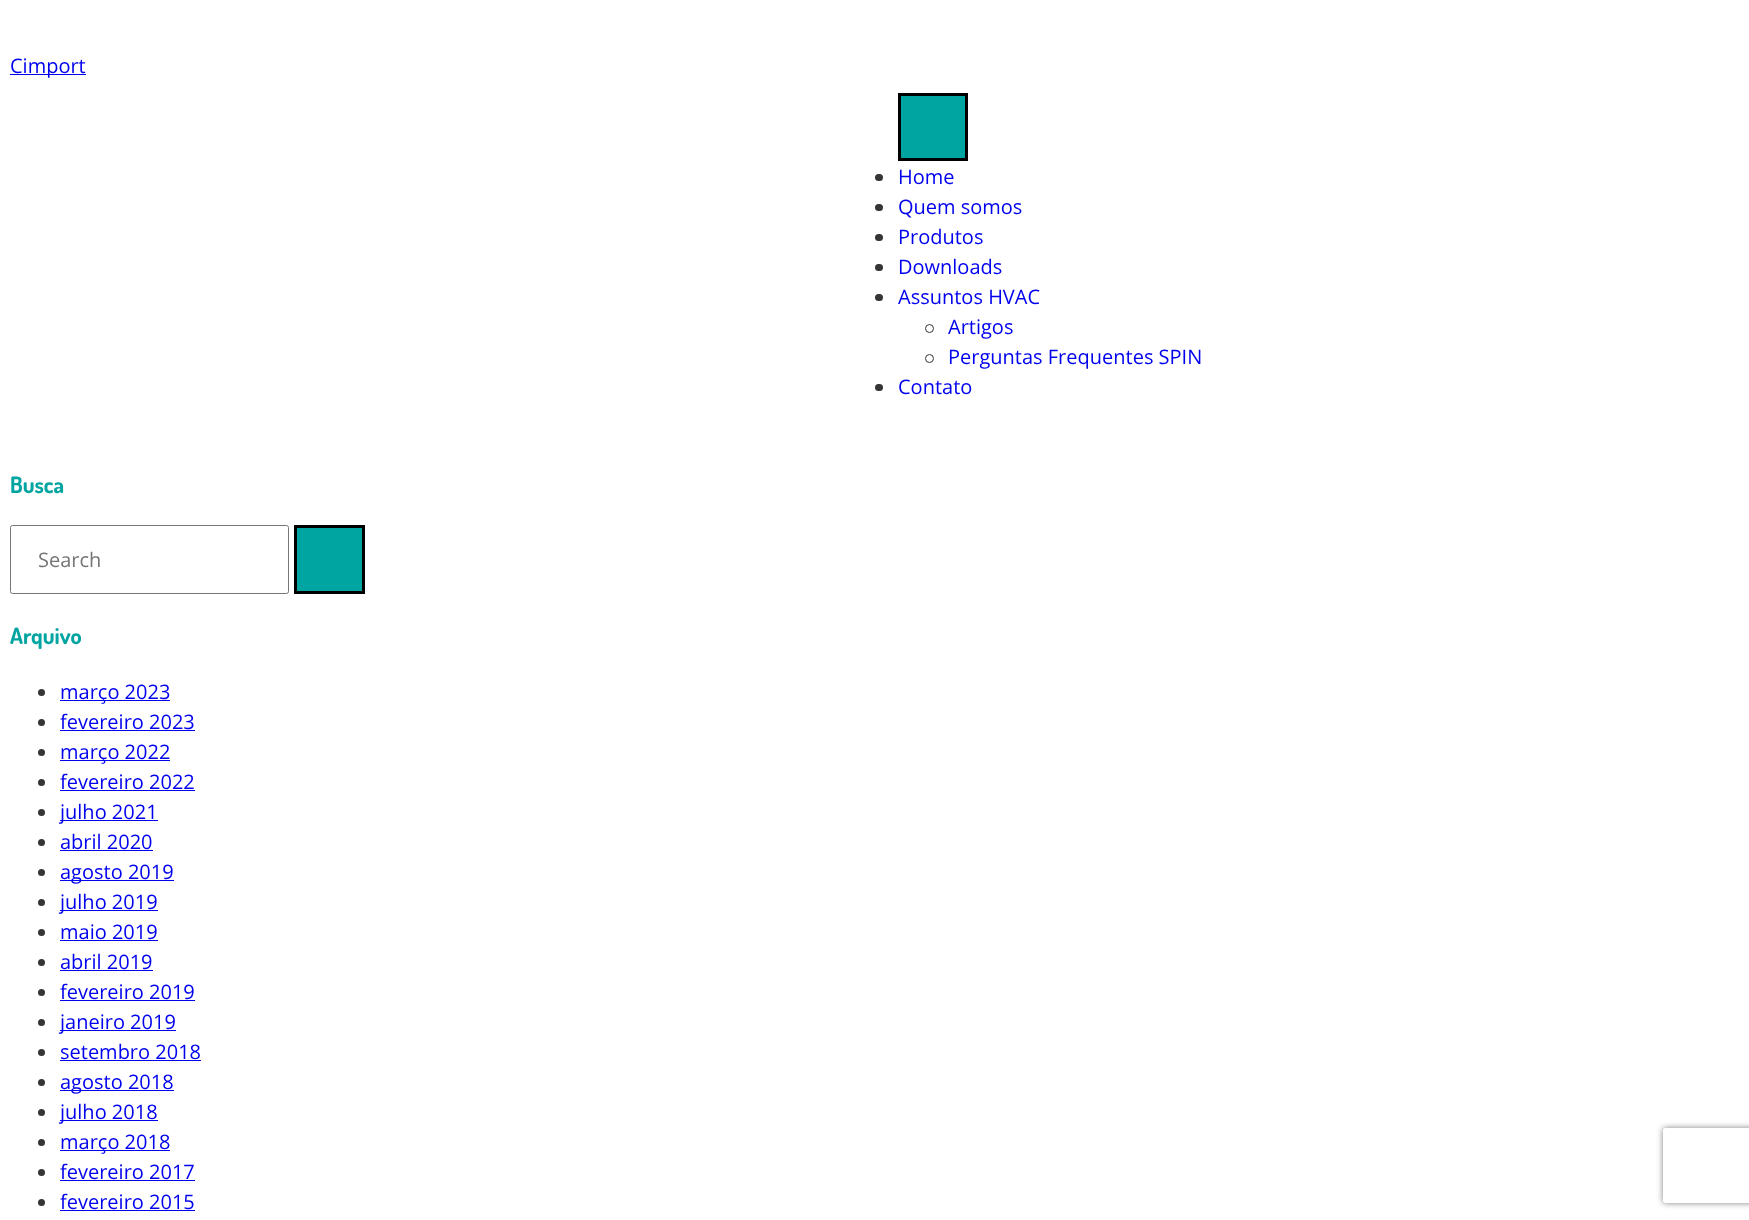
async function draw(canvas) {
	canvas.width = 1749;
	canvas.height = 1220;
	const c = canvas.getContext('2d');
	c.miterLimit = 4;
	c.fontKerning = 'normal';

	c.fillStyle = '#fff';
	c.fillRect(0, 0, 1749, 1220);
	c.fillStyle = '#00e';
	c.fillRect(10, 74, 76, 1);
	c.font = '20px Open Sans';
	c.fillText('Cimport', 10, 73);
	c.fillStyle = '#00a4a0';
	c.beginPath();
	c.rect(899.5, 94.5, 67, 65);
	c.fill();
	c.strokeStyle = '#000';
	c.lineWidth = 3;
	c.stroke();
	c.fillStyle = '#353535';
	c.beginPath();
	c.roundRect(875, 174, 8, 7, 3.5);
	c.fill();
	c.fillStyle = '#00e';
	c.fillText('Home', 898, 184);
	c.fillStyle = '#353535';
	c.beginPath();
	c.roundRect(875, 204, 8, 7, 3.5);
	c.fill();
	c.fillStyle = '#00e';
	c.fillText('Quem somos', 898, 214);
	c.fillStyle = '#353535';
	c.beginPath();
	c.roundRect(875, 234, 8, 7, 3.5);
	c.fill();
	c.fillStyle = '#00e';
	c.fillText('Produtos', 898, 244);
	c.fillStyle = '#353535';
	c.beginPath();
	c.roundRect(875, 264, 8, 7, 3.5);
	c.fill();
	c.fillStyle = '#00e';
	c.fillText('Downloads', 898, 274);
	c.fillStyle = '#353535';
	c.beginPath();
	c.roundRect(875, 294, 8, 7, 3.5);
	c.fill();
	c.fillStyle = '#00e';
	c.fillText('Assuntos HVAC', 898, 304);
	c.beginPath();
	c.arc(929.5, 328.5, 4, 0, 2 * Math.PI);
	c.strokeStyle = '#353535';
	c.lineWidth = 1;
	c.stroke();
	c.fillText('Artigos', 948, 334);
	c.beginPath();
	c.arc(929.5, 358.5, 4, 0, 2 * Math.PI);
	c.stroke();
	c.fillText('Perguntas Frequentes SPIN', 948, 364);
	c.fillStyle = '#353535';
	c.beginPath();
	c.roundRect(875, 384, 8, 7, 3.5);
	c.fill();
	c.fillStyle = '#00e';
	c.fillText('Contato', 898, 394);
	c.font = 'bold 22.5px Dosis';
	c.fillStyle = '#00a4a0';
	c.fillText('Busca', 10, 493);
	c.beginPath();
	c.roundRect(10.5, 525.5, 278, 68, 2);
	c.strokeStyle = '#767676';
	c.stroke();
	c.font = '20px Open Sans';
	c.fillStyle = '#757575';
	c.fillText('Search', 38, 567);
	c.fillStyle = '#00a4a0';
	c.beginPath();
	c.rect(295.5, 526.5, 68, 66);
	c.fill();
	c.strokeStyle = '#000';
	c.lineWidth = 3;
	c.stroke();
	c.font = 'bold 22.5px Dosis';
	c.fillText('Arquivo', 10, 644);
	c.fillStyle = '#353535';
	c.beginPath();
	c.arc(41.5, 692.5, 3.5, 0, 2 * Math.PI);
	c.fill();
	c.fillStyle = '#00e';
	c.fillRect(60, 700, 110, 1);
	c.font = '20px Open Sans';
	c.fillText('março 2023', 60, 699);
	c.fillStyle = '#353535';
	c.beginPath();
	c.arc(41.5, 722.5, 3.5, 0, 2 * Math.PI);
	c.fill();
	c.fillStyle = '#00e';
	c.fillText('fevereiro 2023', 60, 729);
	c.fillRect(60, 730, 135, 1);
	c.fillStyle = '#353535';
	c.beginPath();
	c.arc(41.5, 752.5, 3.5, 0, 2 * Math.PI);
	c.fill();
	c.fillStyle = '#00e';
	c.fillRect(60, 760, 110, 1);
	c.fillText('março 2022', 60, 759);
	c.fillStyle = '#353535';
	c.beginPath();
	c.arc(41.5, 782.5, 3.5, 0, 2 * Math.PI);
	c.fill();
	c.fillStyle = '#00e';
	c.fillText('fevereiro 2022', 60, 789);
	c.fillRect(60, 790, 135, 1);
	c.fillStyle = '#353535';
	c.beginPath();
	c.arc(41.5, 812.5, 3.5, 0, 2 * Math.PI);
	c.fill();
	c.fillStyle = '#00e';
	c.fillRect(60, 820, 98, 1);
	c.fillText('julho 2021', 60, 819);
	c.fillStyle = '#353535';
	c.beginPath();
	c.arc(41.5, 842.5, 3.5, 0, 2 * Math.PI);
	c.fill();
	c.fillStyle = '#00e';
	c.fillText('abril 2020', 60, 849);
	c.fillRect(60, 850, 93, 1);
	c.fillStyle = '#353535';
	c.beginPath();
	c.arc(41.5, 872.5, 3.5, 0, 2 * Math.PI);
	c.fill();
	c.fillStyle = '#00e';
	c.fillRect(60, 880, 114, 1);
	c.fillText('agosto 2019', 60, 879);
	c.fillStyle = '#353535';
	c.beginPath();
	c.arc(41.5, 902.5, 3.5, 0, 2 * Math.PI);
	c.fill();
	c.fillStyle = '#00e';
	c.fillRect(60, 910, 98, 1);
	c.fillText('julho 2019', 60, 909);
	c.fillStyle = '#353535';
	c.beginPath();
	c.arc(41.5, 932.5, 3.5, 0, 2 * Math.PI);
	c.fill();
	c.fillStyle = '#00e';
	c.fillText('maio 2019', 60, 939);
	c.fillRect(60, 940, 98, 1);
	c.fillStyle = '#353535';
	c.beginPath();
	c.arc(41.5, 962.5, 3.5, 0, 2 * Math.PI);
	c.fill();
	c.fillStyle = '#00e';
	c.fillText('abril 2019', 60, 969);
	c.fillRect(60, 970, 93, 1);
	c.fillStyle = '#353535';
	c.beginPath();
	c.arc(41.5, 992.5, 3.5, 0, 2 * Math.PI);
	c.fill();
	c.fillStyle = '#00e';
	c.fillText('fevereiro 2019', 60, 999);
	c.fillRect(60, 1000, 135, 1);
	c.fillStyle = '#353535';
	c.beginPath();
	c.arc(41.5, 1022.5, 3.5, 0, 2 * Math.PI);
	c.fill();
	c.fillStyle = '#00e';
	c.fillRect(60, 1030, 116, 1);
	c.fillText('janeiro 2019', 60, 1029);
	c.fillStyle = '#353535';
	c.beginPath();
	c.arc(41.5, 1052.5, 3.5, 0, 2 * Math.PI);
	c.fill();
	c.fillStyle = '#00e';
	c.fillText('setembro 2018', 60, 1059);
	c.fillRect(60, 1060, 141, 1);
	c.fillStyle = '#353535';
	c.beginPath();
	c.arc(41.5, 1082.5, 3.5, 0, 2 * Math.PI);
	c.fill();
	c.fillStyle = '#00e';
	c.fillRect(60, 1090, 114, 1);
	c.fillText('agosto 2018', 60, 1089);
	c.fillStyle = '#353535';
	c.beginPath();
	c.arc(41.5, 1112.5, 3.5, 0, 2 * Math.PI);
	c.fill();
	c.fillStyle = '#00e';
	c.fillRect(60, 1120, 98, 1);
	c.fillText('julho 2018', 60, 1119);
	c.fillStyle = '#353535';
	c.beginPath();
	c.arc(41.5, 1142.5, 3.5, 0, 2 * Math.PI);
	c.fill();
	c.fillStyle = '#00e';
	c.fillRect(60, 1150, 110, 1);
	c.fillText('março 2018', 60, 1149);
	c.fillStyle = '#353535';
	c.beginPath();
	c.arc(41.5, 1172.5, 3.5, 0, 2 * Math.PI);
	c.fill();
	c.fillStyle = '#00e';
	c.fillText('fevereiro 2017', 60, 1179);
	c.fillRect(60, 1180, 135, 1);
	c.fillStyle = '#353535';
	c.beginPath();
	c.arc(41.5, 1202.5, 3.5, 0, 2 * Math.PI);
	c.fill();
	c.fillStyle = '#00e';
	c.fillText('fevereiro 2015', 60, 1209);
	c.fillRect(60, 1210, 135, 1);
	c.save();
	c.beginPath();
	c.moveTo(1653, 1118);
	c.lineTo(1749, 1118);
	c.lineTo(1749, 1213);
	c.lineTo(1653, 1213);
	c.closePath();
	c.moveTo(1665.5, 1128);
	c.lineTo(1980.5, 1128);
	c.bezierCurveTo(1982, 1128, 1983, 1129, 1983, 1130.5);
	c.lineTo(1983, 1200.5);
	c.bezierCurveTo(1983, 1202, 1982, 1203, 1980.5, 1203);
	c.lineTo(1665.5, 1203);
	c.bezierCurveTo(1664, 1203, 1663, 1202, 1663, 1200.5);
	c.lineTo(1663, 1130.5);
	c.bezierCurveTo(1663, 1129, 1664, 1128, 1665.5, 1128);
	c.closePath();
	c.clip('evenodd');
	c.fillStyle = '#808080';
	c.filter = 'blur(3px)';
	c.beginPath();
	c.roundRect(1663, 1128, 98, 75, 2.5);
	c.fill();
	c.filter = 'none';
	c.restore();
}

draw(document.querySelector('canvas'));
